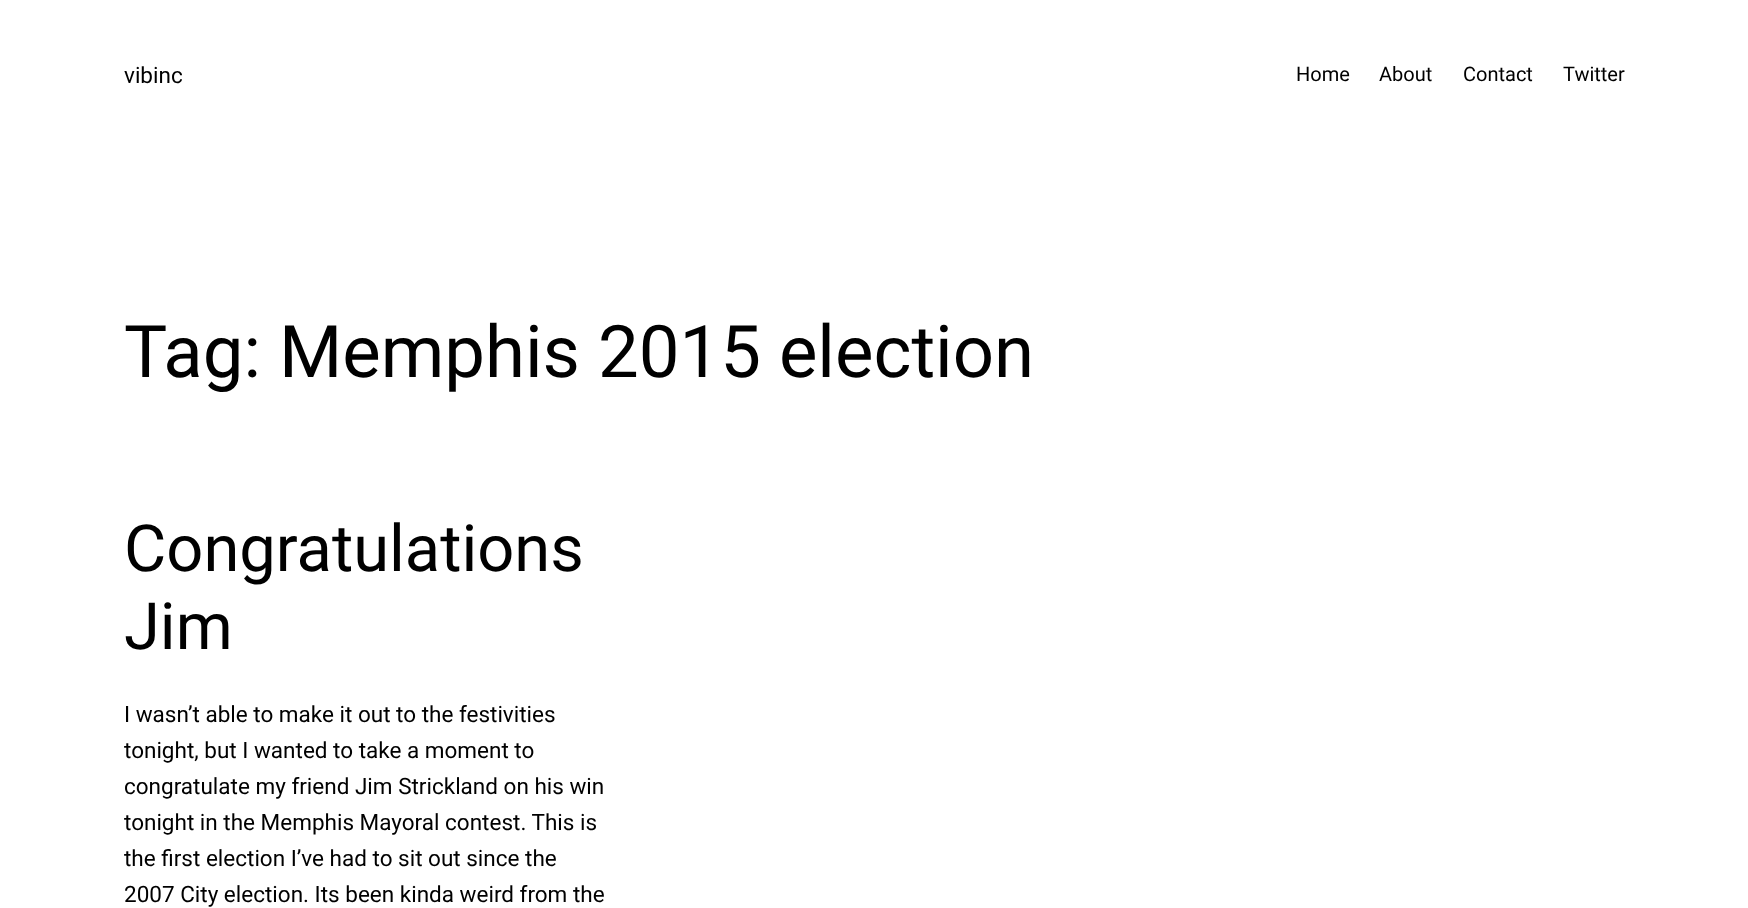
async function draw(canvas) {
	canvas.width = 1748;
	canvas.height = 908;
	const c = canvas.getContext('2d');
	c.miterLimit = 4;
	c.fontKerning = 'normal';

	c.fillStyle = '#fff';
	c.fillRect(0, 0, 1748, 908);
	c.font = '22.5px Roboto';
	c.fillStyle = '#000';
	c.fillText('vibinc', 124, 83);
	c.font = '20px Roboto';
	for (const [text, x, y] of [
		['Home', 1296, 81],
		['About', 1379, 81],
		['Contact', 1463, 81],
		['Twitter', 1563, 81],
	]) {
		c.fillText(text, x, y);
	}
	c.font = '72.5px Roboto';
	c.fillText('Tag: Memphis 2015 election', 124, 377);
	c.font = '65px Roboto';
	c.fillText('Congratulations', 124, 571);
	c.fillText('Jim', 124, 649);
	c.font = '22.5px Roboto';
	for (const [text, x, y] of [
		['I wasn’t able to make it out to the festivities', 124, 722],
		['tonight, but I wanted to take a moment to', 124, 758],
		['congratulate my friend Jim Strickland on his win', 124, 794],
		['tonight in the Memphis Mayoral contest. This is', 124, 830],
		['the first election I’ve had to sit out since the', 124, 866],
		['2007 City election. Its been kinda weird from the', 124, 902],
	]) {
		c.fillText(text, x, y);
	}
}

draw(document.querySelector('canvas'));
